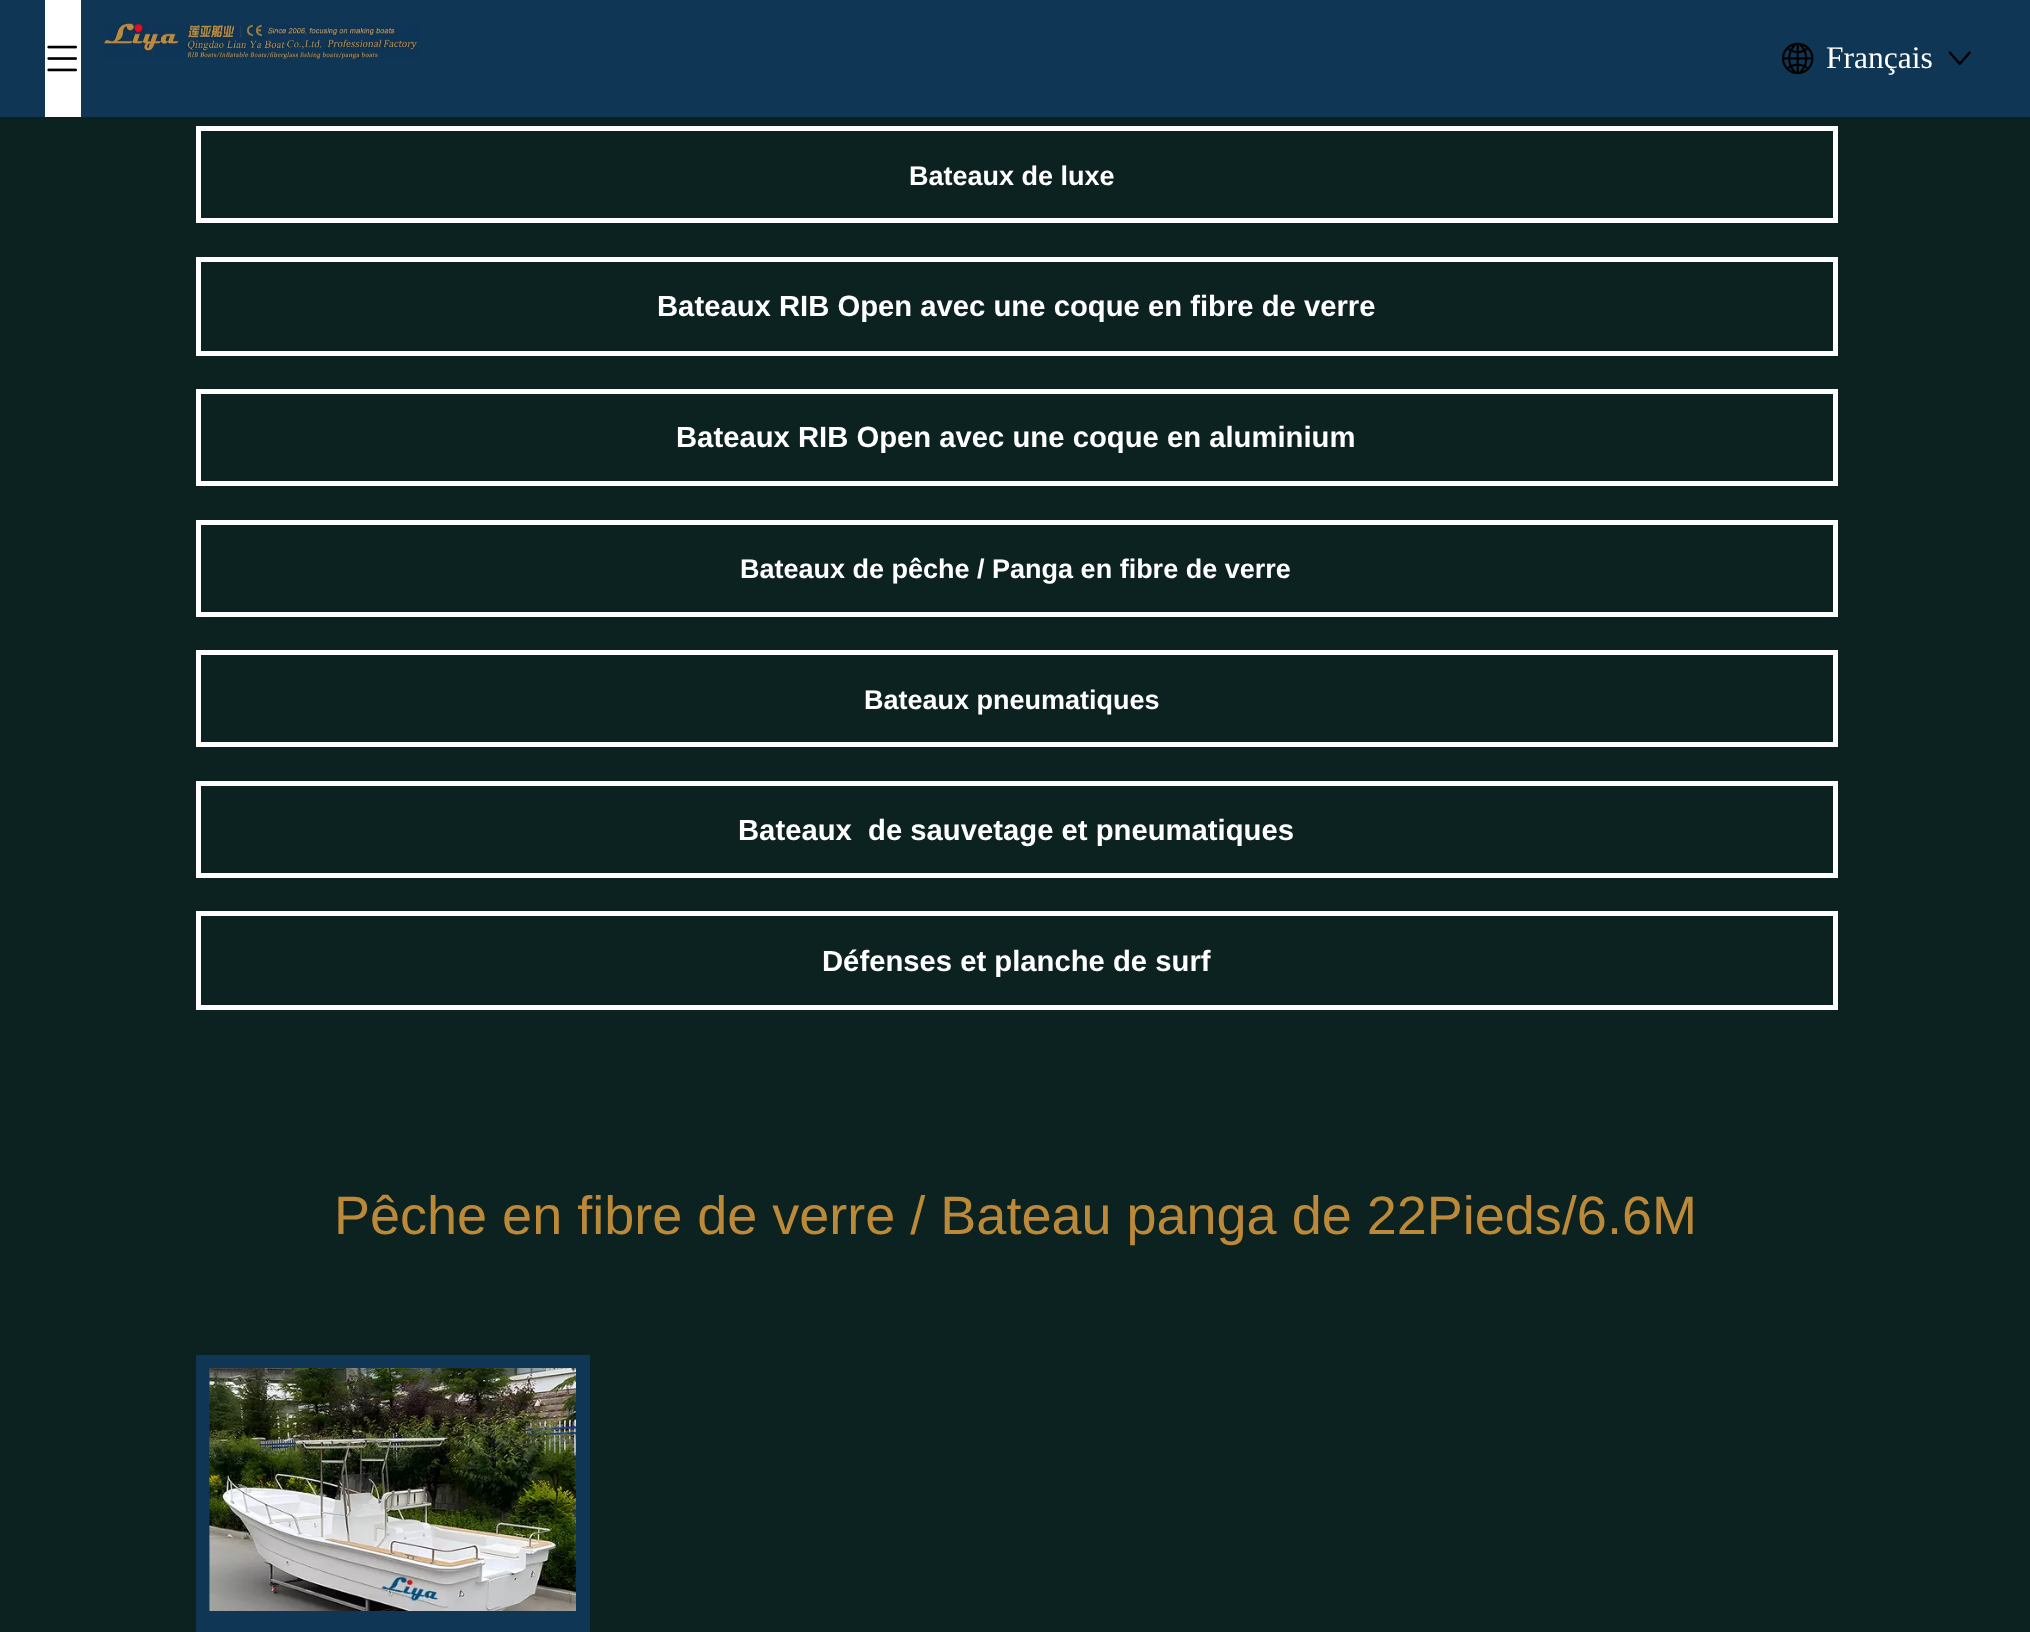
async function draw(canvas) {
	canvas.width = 2030;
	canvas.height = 1632;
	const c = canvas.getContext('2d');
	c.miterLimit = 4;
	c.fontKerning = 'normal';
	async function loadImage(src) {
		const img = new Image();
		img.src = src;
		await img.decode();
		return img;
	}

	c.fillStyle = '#0c2220';
	c.fillRect(0, 0, 2030, 1632);
	c.fillStyle = '#0f3655';
	c.fillRect(0, 0, 2030, 117);
	c.fillStyle = '#fff';
	c.fillRect(45, 0, 36, 117);
	c.drawImage(await loadImage('img1.png'), 47, 45, 30, 27);
	c.drawImage(await loadImage('img2.png'), 104, 23, 315, 36);
	c.drawImage(await loadImage('img3.png'), 1782, 42, 32, 33);
	c.font = '31.5px Liberation Serif';
	c.fillText('Français', 1826, 68);
	c.drawImage(await loadImage('img4.png'), 1948, 51, 23, 14);
	c.strokeStyle = '#fff';
	c.lineWidth = 5;
	c.strokeRect(198.5, 128.5, 1637, 92);
	c.font = 'bold 27px Liberation Sans';
	c.fillText('Bateaux de luxe', 909, 185);
	c.strokeRect(198.5, 259.5, 1637, 94);
	c.font = 'bold 29.25px Liberation Sans';
	c.fillText('Bateaux RIB Open avec une coque en fibre de verre', 657, 316);
	c.strokeRect(198.5, 391.5, 1637, 92);
	c.fillText('Bateaux RIB Open avec une coque en aluminium', 676, 447);
	c.strokeRect(198.5, 522.5, 1637, 92);
	c.font = 'bold 27px Liberation Sans';
	c.fillText('Bateaux de pêche / Panga en fibre de verre', 740, 578);
	c.strokeRect(198.5, 652.5, 1637, 92);
	c.fillText('Bateaux pneumatiques', 864, 709);
	c.strokeRect(198.5, 783.5, 1637, 92);
	c.font = 'bold 29.25px Liberation Sans';
	c.fillText('Bateaux  de sauvetage et pneumatiques', 738, 840);
	c.strokeRect(198.5, 913.5, 1637, 94);
	c.fillText('Défenses et planche de surf', 822, 971);
	c.font = '54px Liberation Sans';
	c.fillStyle = '#bc8939';
	c.fillText('Pêche en fibre de verre / Bateau panga de 22Pieds/6.6M', 334, 1234);
	c.fillStyle = '#0f3655';
	c.fillRect(196, 1355, 394, 277);
	c.drawImage(await loadImage('img5.png'), 209, 1368, 367, 243);
}

draw(document.querySelector('canvas'));
